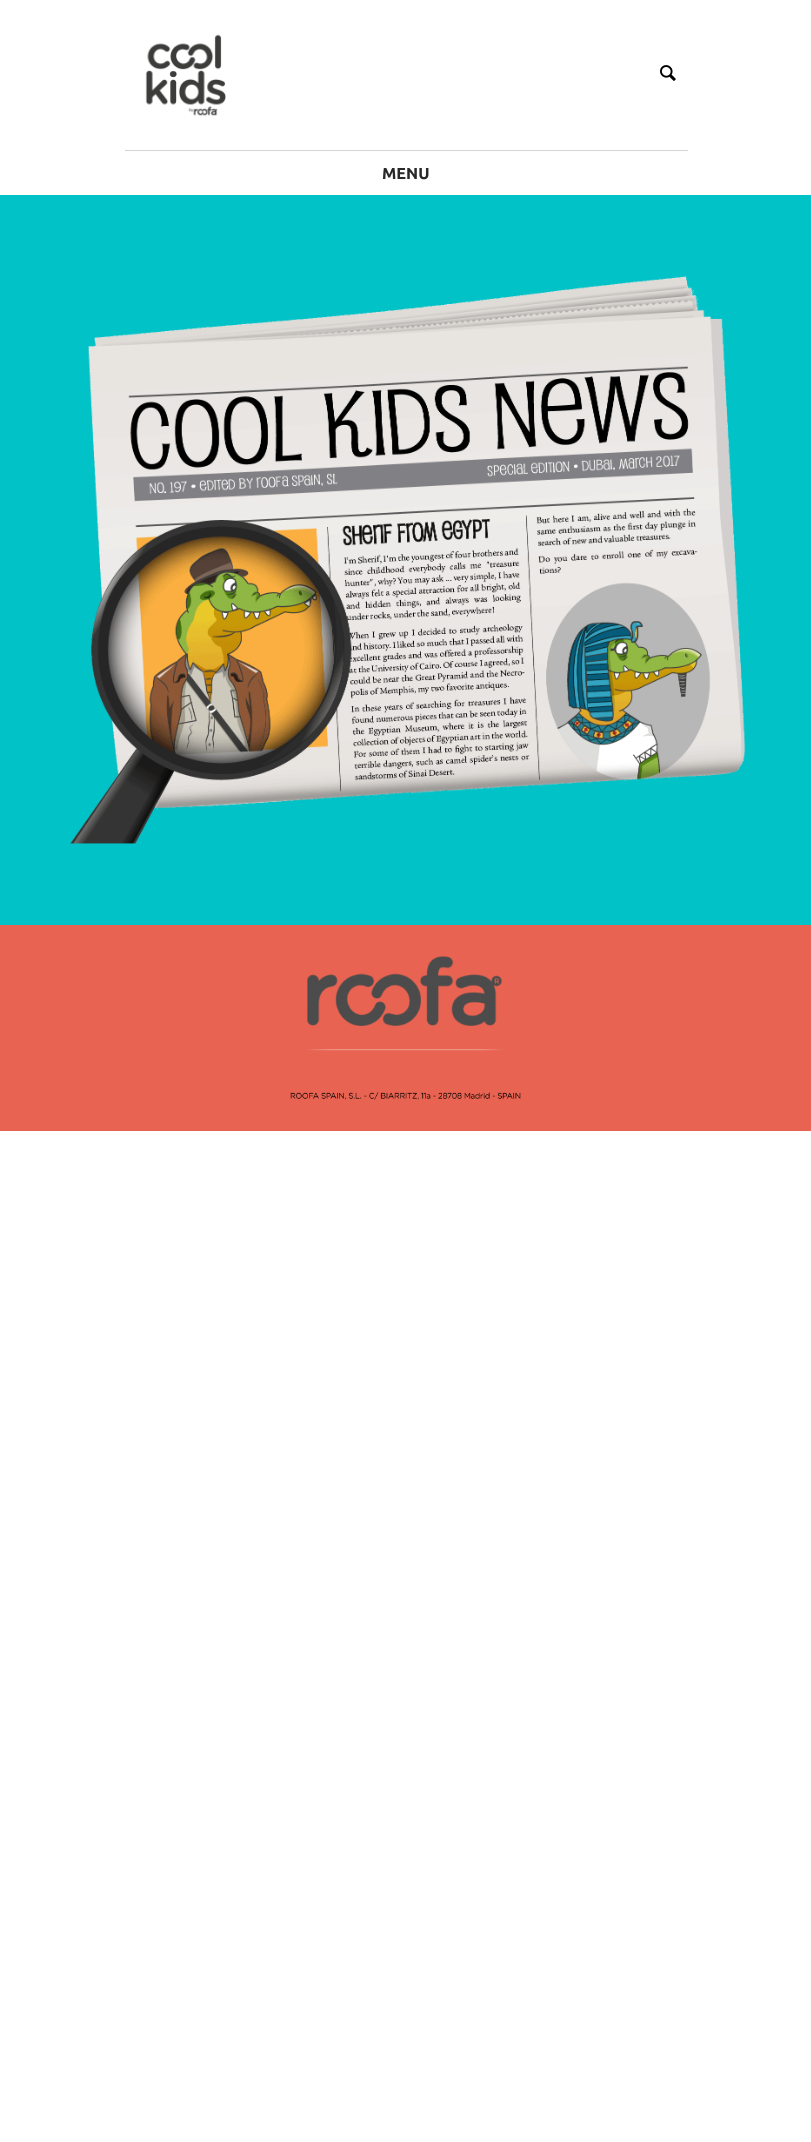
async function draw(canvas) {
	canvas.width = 811;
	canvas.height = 2142;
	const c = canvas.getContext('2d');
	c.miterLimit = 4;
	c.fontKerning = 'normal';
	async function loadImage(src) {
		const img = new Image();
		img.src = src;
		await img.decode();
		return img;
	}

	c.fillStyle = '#fff';
	c.fillRect(0, 0, 811, 2142);
	c.drawImage(await loadImage('img1.png'), 145, 34, 81, 82);
	c.drawImage(await loadImage('img2.png'), 660, 65, 16, 16);
	c.fillStyle = '#d4d4d4';
	c.fillRect(125, 150, 563, 1);
	c.font = 'bold 16px Ubuntu';
	c.fillStyle = '#292929';
	c.fillText('MENU', 382, 179);
	c.fillStyle = '#01c2c7';
	c.fillRect(0, 195, 811, 730);
	c.drawImage(await loadImage('img3.png'), 70, 276, 676, 568);
	c.fillStyle = '#e86351';
	c.fillRect(0, 925, 811, 206);
	c.drawImage(await loadImage('img4.png'), 307, 956, 195, 70);
	c.drawImage(await loadImage('img5.png'), 306, 1049, 198, 2);
	c.drawImage(await loadImage('img6.png'), 290, 1092, 231, 8);
}

draw(document.querySelector('canvas'));
